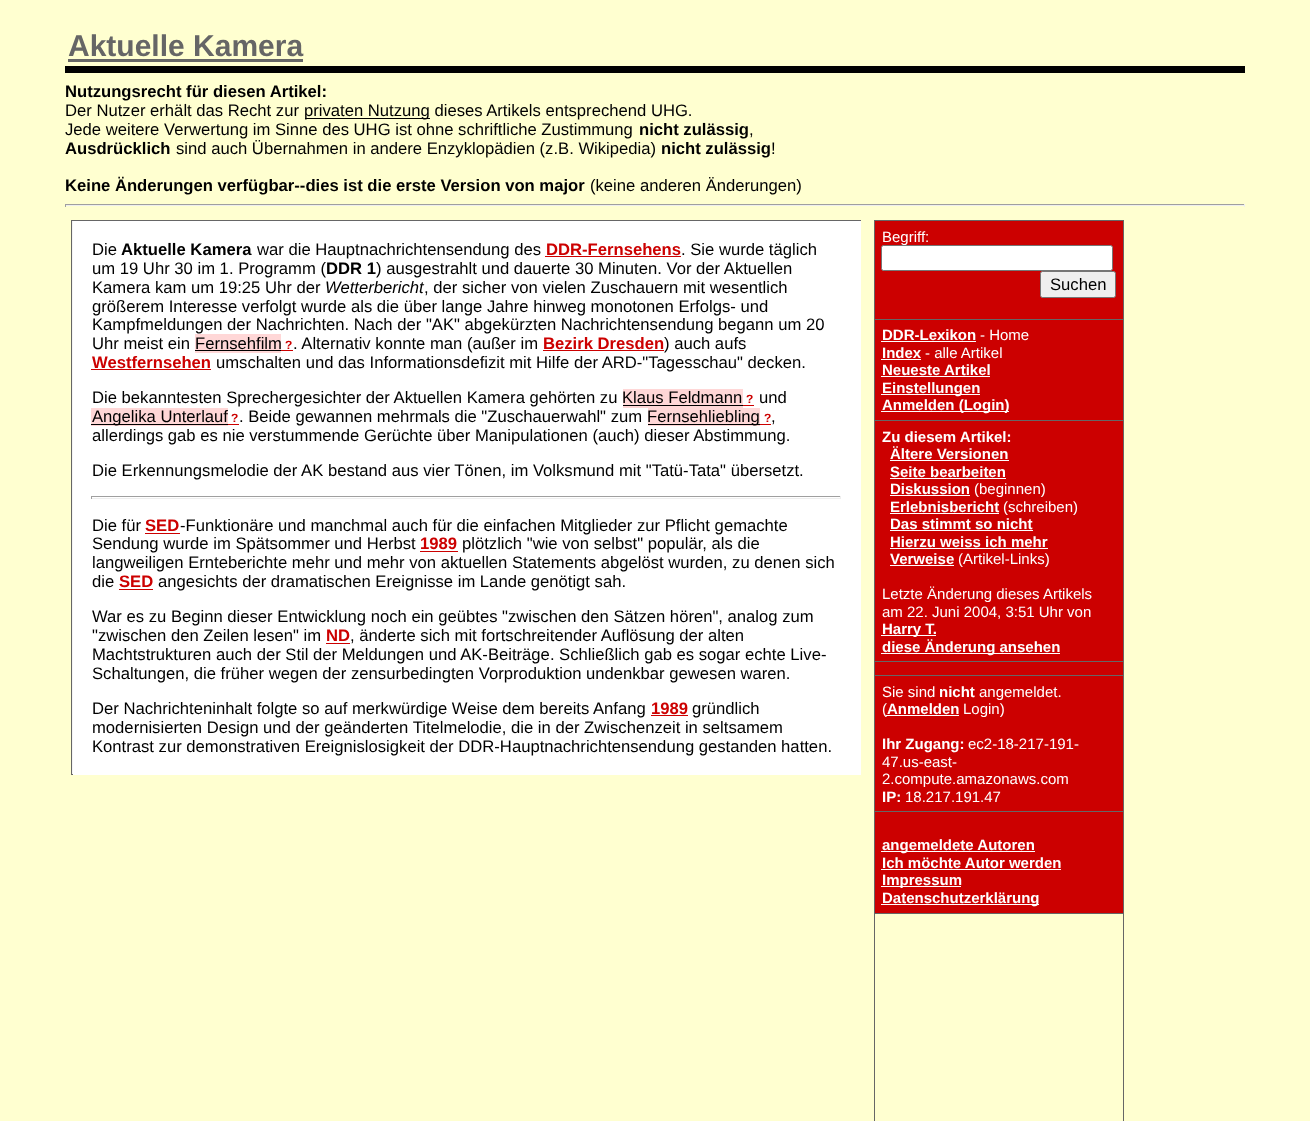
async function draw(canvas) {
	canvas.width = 1310;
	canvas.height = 1121;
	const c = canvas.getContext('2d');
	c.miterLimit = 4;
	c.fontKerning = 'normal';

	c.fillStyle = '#ffffd0';
	c.fillRect(0, 0, 1310, 1121);
	c.fillStyle = '#000';
	c.fillRect(65, 66, 1180, 7);
	c.font = 'bold 30px Liberation Sans';
	c.fillStyle = '#666';
	c.fillText('Aktuelle Kamera', 68, 56);
	c.fillRect(68, 59, 235, 3);
	c.font = 'bold 16.65px Liberation Sans';
	c.fillStyle = '#000';
	c.fillText('Nutzungsrecht für diesen Artikel:', 65, 97);
	c.font = '16.65px Liberation Sans';
	c.fillText('Der Nutzer erhält das Recht zur', 65, 116);
	c.fillRect(305, 118, 125, 1);
	c.fillText('privaten Nutzung dieses Artikels entsprechend UHG.', 304, 116);
	c.fillText('Jede weitere Verwertung im Sinne des UHG ist ohne schriftliche Zustimmung', 65, 135);
	c.font = 'bold 16.65px Liberation Sans';
	c.fillText('nicht zulässig', 639, 135);
	c.font = '16.65px Liberation Sans';
	c.fillText(',', 749, 135);
	c.font = 'bold 16.65px Liberation Sans';
	c.fillText('Ausdrücklich', 65, 154);
	c.font = '16.65px Liberation Sans';
	c.fillText('sind auch Übernahmen in andere Enzyklopädien (z.B. Wikipedia)', 176, 154);
	c.font = 'bold 16.65px Liberation Sans';
	c.fillText('nicht zulässig', 661, 154);
	c.font = '16.65px Liberation Sans';
	c.fillText('!', 771, 154);
	c.font = 'bold 16.65px Liberation Sans';
	c.fillText('Keine Änderungen verfügbar--dies ist die erste Version von major', 65, 191);
	c.font = '16.65px Liberation Sans';
	c.fillText('(keine anderen Änderungen)', 590, 191);
	for (const [x, y, w, h, color] of [
		[65, 204, 1180, 1, '#9f9f9f'],
		[1244, 204, 1, 3, '#eee'],
		[65, 205, 1180, 1, '#eee'],
		[65, 204, 1, 3, '#9f9f9f'],
		[72, 221, 1, 553, '#f4f4f4'],
		[71, 220, 790, 1, '#666'],
		[71, 774, 2, 1, '#666'],
		[71, 220, 1, 555, '#666'],
		[73, 221, 788, 554, '#fff'],
	]) {
		c.fillStyle = color;
		c.fillRect(x, y, w, h);
	}
	c.fillStyle = '#000';
	c.fillText('Die', 92, 255);
	c.font = 'bold 16.65px Liberation Sans';
	c.fillText('Aktuelle Kamera', 121, 255);
	c.font = '16.65px Liberation Sans';
	c.fillText('war die Hauptnachrichtensendung des', 257, 255);
	c.font = 'bold 16.65px Liberation Sans';
	c.fillStyle = '#c00';
	c.fillText('DDR-Fernsehens', 546, 255);
	c.fillRect(545, 256, 136, 1);
	c.font = '16.65px Liberation Sans';
	c.fillStyle = '#000';
	c.fillText('. Sie wurde täglich', 681, 255);
	c.fillText('um 19 Uhr 30 im 1. Programm (', 92, 274);
	c.font = 'bold 16.65px Liberation Sans';
	c.fillText('DDR 1', 326, 274);
	c.font = '16.65px Liberation Sans';
	c.fillText(') ausgestrahlt und dauerte 30 Minuten. Vor der Aktuellen', 376, 274);
	c.fillText('Kamera kam um 19:25 Uhr der', 92, 293);
	c.font = 'italic 16.65px Liberation Sans';
	c.fillText('Wetterbericht', 325, 293);
	c.font = '16.65px Liberation Sans';
	for (const [text, x, y] of [
		[', der sicher von vielen Zuschauern mit wesentlich', 424, 293],
		['größerem Interesse verfolgt wurde als die über lange Jahre hinweg monotonen Erfolgs- und', 92, 312],
		['Kampfmeldungen der Nachrichten. Nach der "AK" abgekürzten Nachrichtensendung begann um 20', 92, 330],
		['Uhr meist ein', 92, 349],
	]) {
		c.fillText(text, x, y);
	}
	c.fillStyle = '#ffd7d7';
	c.fillRect(195, 334, 86, 19);
	c.fillStyle = '#000';
	c.fillText('Fernsehfilm', 195, 349);
	c.fillRect(195, 350, 86, 1);
	c.font = 'bold 12px Liberation Sans';
	c.fillStyle = '#c00';
	c.fillText('?', 285, 349);
	c.fillRect(281, 350, 12, 1);
	c.font = '16.65px Liberation Sans';
	c.fillStyle = '#000';
	c.fillText('. Alternativ konnte man (außer im', 293, 349);
	c.font = 'bold 16.65px Liberation Sans';
	c.fillStyle = '#c00';
	c.fillText('Bezirk Dresden', 543, 349);
	c.fillRect(543, 350, 121, 1);
	c.font = '16.65px Liberation Sans';
	c.fillStyle = '#000';
	c.fillText(') auch aufs', 664, 349);
	c.font = 'bold 16.65px Liberation Sans';
	c.fillStyle = '#c00';
	c.fillText('Westfernsehen', 92, 368);
	c.fillRect(91, 369, 120, 1);
	c.font = '16.65px Liberation Sans';
	c.fillStyle = '#000';
	c.fillText('umschalten und das Informationsdefizit mit Hilfe der ARD-"Tagesschau" decken.', 216, 368);
	c.fillText('Die bekanntesten Sprechergesichter der Aktuellen Kamera gehörten zu', 92, 403);
	c.fillStyle = '#ffd7d7';
	c.fillRect(623, 389, 120, 19);
	c.fillStyle = '#000';
	c.fillText('Klaus Feldmann', 622, 403);
	c.fillRect(623, 405, 120, 1);
	c.font = 'bold 12px Liberation Sans';
	c.fillStyle = '#c00';
	c.fillText('?', 746, 403);
	c.fillRect(743, 405, 11, 1);
	c.font = '16.65px Liberation Sans';
	c.fillStyle = '#000';
	c.fillText('und', 759, 403);
	c.fillStyle = '#ffd7d7';
	c.fillRect(91, 408, 137, 18);
	c.fillStyle = '#000';
	c.fillRect(91, 424, 137, 1);
	c.fillText('Angelika Unterlauf', 92, 422);
	c.font = 'bold 12px Liberation Sans';
	c.fillStyle = '#c00';
	c.fillText('?', 231, 422);
	c.fillRect(228, 424, 11, 1);
	c.font = '16.65px Liberation Sans';
	c.fillStyle = '#000';
	c.fillText('. Beide gewannen mehrmals die "Zuschauerwahl" zum', 239, 422);
	c.fillStyle = '#ffd7d7';
	c.fillRect(648, 408, 112, 18);
	c.fillStyle = '#000';
	c.fillRect(648, 424, 112, 1);
	c.fillText('Fernsehliebling', 647, 422);
	c.font = 'bold 12px Liberation Sans';
	c.fillStyle = '#c00';
	c.fillText('?', 764, 422);
	c.fillRect(760, 424, 11, 1);
	c.font = '16.65px Liberation Sans';
	c.fillStyle = '#000';
	for (const [text, x, y] of [
		[',', 771, 422],
		['allerdings gab es nie verstummende Gerüchte über Manipulationen (auch) dieser Abstimmung.', 92, 441],
		['Die Erkennungsmelodie der AK bestand aus vier Tönen, im Volksmund mit "Tatü-Tata" übersetzt.', 92, 476],
	]) {
		c.fillText(text, x, y);
	}
	for (const [x, y, w, h, color] of [
		[91, 496, 750, 1, '#9f9f9f'],
		[840, 496, 1, 3, '#eee'],
		[91, 498, 750, 1, '#eee'],
		[91, 496, 1, 3, '#9f9f9f'],
	]) {
		c.fillStyle = color;
		c.fillRect(x, y, w, h);
	}
	c.fillStyle = '#000';
	c.fillText('Die für', 92, 531);
	c.font = 'bold 16.65px Liberation Sans';
	c.fillStyle = '#c00';
	c.fillText('SED', 145, 531);
	c.fillRect(145, 533, 35, 1);
	c.font = '16.65px Liberation Sans';
	c.fillStyle = '#000';
	c.fillText('-Funktionäre und manchmal auch für die einfachen Mitglieder zur Pflicht gemachte', 180, 531);
	c.fillText('Sendung wurde im Spätsommer und Herbst', 92, 549);
	c.font = 'bold 16.65px Liberation Sans';
	c.fillStyle = '#c00';
	c.fillText('1989', 420, 549);
	c.fillRect(420, 551, 38, 1);
	c.font = '16.65px Liberation Sans';
	c.fillStyle = '#000';
	for (const [text, x, y] of [
		['plötzlich "wie von selbst" populär, als die', 462, 549],
		['langweiligen Ernteberichte mehr und mehr von aktuellen Statements abgelöst wurden, zu denen sich', 92, 568],
		['die', 92, 587],
	]) {
		c.fillText(text, x, y);
	}
	c.font = 'bold 16.65px Liberation Sans';
	c.fillStyle = '#c00';
	c.fillText('SED', 119, 587);
	c.fillRect(119, 589, 34, 1);
	c.font = '16.65px Liberation Sans';
	c.fillStyle = '#000';
	for (const [text, x, y] of [
		['angesichts der dramatischen Ereignisse im Lande genötigt sah.', 158, 587],
		['War es zu Beginn dieser Entwicklung noch ein geübtes "zwischen den Sätzen hören", analog zum', 92, 622],
		['"zwischen den Zeilen lesen" im', 92, 641],
	]) {
		c.fillText(text, x, y);
	}
	c.font = 'bold 16.65px Liberation Sans';
	c.fillStyle = '#c00';
	c.fillText('ND', 326, 641);
	c.fillRect(326, 643, 24, 1);
	c.font = '16.65px Liberation Sans';
	c.fillStyle = '#000';
	for (const [text, x, y] of [
		[', änderte sich mit fortschreitender Auflösung der alten', 350, 641],
		['Machtstrukturen auch der Stil der Meldungen und AK-Beiträge. Schließlich gab es sogar echte Live-', 92, 660],
		['Schaltungen, die früher wegen der zensurbedingten Vorproduktion undenkbar gewesen waren.', 92, 679],
		['Der Nachrichteninhalt folgte so auf merkwürdige Weise dem bereits Anfang', 92, 714],
	]) {
		c.fillText(text, x, y);
	}
	c.font = 'bold 16.65px Liberation Sans';
	c.fillStyle = '#c00';
	c.fillText('1989', 651, 714);
	c.fillRect(651, 715, 37, 1);
	c.font = '16.65px Liberation Sans';
	c.fillStyle = '#000';
	for (const [text, x, y] of [
		['gründlich', 692, 714],
		['modernisierten Design und der geänderten Titelmelodie, die in der Zwischenzeit in seltsamem', 92, 733],
		['Kontrast zur demonstrativen Ereignislosigkeit der DDR-Hauptnachrichtensendung gestanden hatten.', 92, 752],
	]) {
		c.fillText(text, x, y);
	}
	for (const [x, y, w, h, color] of [
		[875, 221, 248, 98, '#c00'],
		[874, 220, 250, 1, '#666'],
		[874, 319, 250, 1, '#666'],
		[874, 420, 250, 1, '#666'],
		[875, 421, 248, 254, '#c00'],
		[874, 661, 250, 1, '#666'],
		[874, 675, 250, 1, '#666'],
		[875, 676, 248, 237, '#c00'],
		[874, 811, 250, 1, '#666'],
		[874, 913, 250, 1, '#666'],
		[1123, 913, 1, 208, '#666'],
		[1123, 811, 1, 103, '#666'],
		[1123, 675, 1, 138, '#666'],
		[1123, 661, 1, 15, '#666'],
		[1123, 420, 1, 243, '#666'],
		[1123, 319, 1, 102, '#666'],
		[1123, 220, 1, 100, '#666'],
		[874, 913, 1, 208, '#666'],
		[874, 811, 1, 103, '#666'],
		[874, 675, 1, 138, '#666'],
		[874, 661, 1, 15, '#666'],
		[874, 420, 1, 243, '#666'],
		[874, 319, 1, 102, '#666'],
		[874, 220, 1, 100, '#666'],
	]) {
		c.fillStyle = color;
		c.fillRect(x, y, w, h);
	}
	c.font = '15px Liberation Sans';
	c.fillStyle = '#fff';
	c.fillText('Begriff:', 882, 242);
	c.beginPath();
	c.roundRect(881.5, 245.5, 231, 25, 2);
	c.fill();
	c.strokeStyle = '#767676';
	c.stroke();
	c.fillStyle = '#efefef';
	c.beginPath();
	c.roundRect(1040.5, 271.5, 75, 26, 2);
	c.fill();
	c.stroke();
	c.font = '16.65px Liberation Sans';
	c.fillStyle = '#000';
	c.fillText('Suchen', 1050, 290);
	c.fillStyle = '#c00';
	c.fillRect(875, 320, 248, 100);
	c.font = 'bold 15px Liberation Sans';
	c.fillStyle = '#fff';
	c.fillText('DDR-Lexikon', 882, 340);
	c.fillRect(881, 341, 95, 1);
	c.font = '15px Liberation Sans';
	c.fillText('- Home', 980, 340);
	c.font = 'bold 15px Liberation Sans';
	c.fillText('Index', 882, 358);
	c.fillRect(881, 359, 40, 1);
	c.font = '15px Liberation Sans';
	c.fillText('- alle Artikel', 925, 358);
	c.font = 'bold 15px Liberation Sans';
	c.fillText('Neueste Artikel', 882, 375);
	c.fillRect(881, 376, 109, 1);
	c.fillRect(881, 394, 99, 1);
	c.fillText('Einstellungen', 882, 393);
	c.fillRect(881, 411, 128, 1);
	for (const [text, x, y] of [
		['Anmelden (Login)', 882, 410],
		['Zu diesem Artikel:', 882, 442],
		['Ältere Versionen', 890, 459],
	]) {
		c.fillText(text, x, y);
	}
	c.fillRect(890, 460, 119, 1);
	c.fillText('Seite bearbeiten', 890, 477);
	c.fillRect(890, 478, 116, 1);
	c.fillText('Diskussion', 890, 494);
	c.fillRect(890, 495, 80, 1);
	c.font = '15px Liberation Sans';
	c.fillText('(beginnen)', 974, 494);
	c.font = 'bold 15px Liberation Sans';
	c.fillText('Erlebnisbericht', 890, 512);
	c.fillRect(890, 513, 109, 1);
	c.font = '15px Liberation Sans';
	c.fillText('(schreiben)', 1003, 512);
	c.font = 'bold 15px Liberation Sans';
	c.fillText('Das stimmt so nicht', 890, 529);
	c.fillRect(890, 530, 143, 1);
	c.fillText('Hierzu weiss ich mehr', 890, 547);
	c.fillRect(890, 548, 158, 1);
	c.fillText('Verweise', 890, 564);
	c.fillRect(890, 565, 64, 1);
	c.font = '15px Liberation Sans';
	for (const [text, x, y] of [
		['(Artikel-Links)', 958, 564],
		['Letzte Änderung dieses Artikels', 882, 599],
		['am 22. Juni 2004, 3:51 Uhr von', 882, 617],
	]) {
		c.fillText(text, x, y);
	}
	c.fillRect(881, 635, 55, 1);
	c.font = 'bold 15px Liberation Sans';
	c.fillText('Harry T.', 882, 634);
	c.fillRect(881, 653, 179, 1);
	c.fillText('diese Änderung ansehen', 882, 652);
	c.font = '15px Liberation Sans';
	c.fillText('Sie sind', 882, 697);
	c.font = 'bold 15px Liberation Sans';
	c.fillText('nicht', 939, 697);
	c.font = '15px Liberation Sans';
	c.fillText('angemeldet.', 979, 697);
	c.fillText('(', 882, 714);
	c.font = 'bold 15px Liberation Sans';
	c.fillText('Anmelden', 887, 714);
	c.fillRect(886, 715, 73, 1);
	c.font = '15px Liberation Sans';
	c.fillText('Login)', 963, 714);
	c.font = 'bold 15px Liberation Sans';
	c.fillText('Ihr Zugang:', 882, 749);
	c.font = '15px Liberation Sans';
	for (const [text, x, y] of [
		['ec2-18-217-191-', 968, 749],
		['47.us-east-', 882, 767],
		['2.compute.amazonaws.com', 882, 784],
	]) {
		c.fillText(text, x, y);
	}
	c.font = 'bold 15px Liberation Sans';
	c.fillText('IP:', 882, 802);
	c.font = '15px Liberation Sans';
	c.fillText('18.217.191.47', 905, 802);
	c.fillRect(881, 851, 154, 1);
	c.font = 'bold 15px Liberation Sans';
	c.fillText('angemeldete Autoren', 882, 850);
	c.fillText('Ich möchte Autor werden', 882, 868);
	c.fillRect(881, 869, 180, 1);
	c.fillRect(881, 886, 80, 1);
	c.fillText('Impressum', 882, 885);
	c.fillRect(881, 904, 158, 1);
	c.fillText('Datenschutzerklärung', 882, 903);
}

draw(document.querySelector('canvas'));
